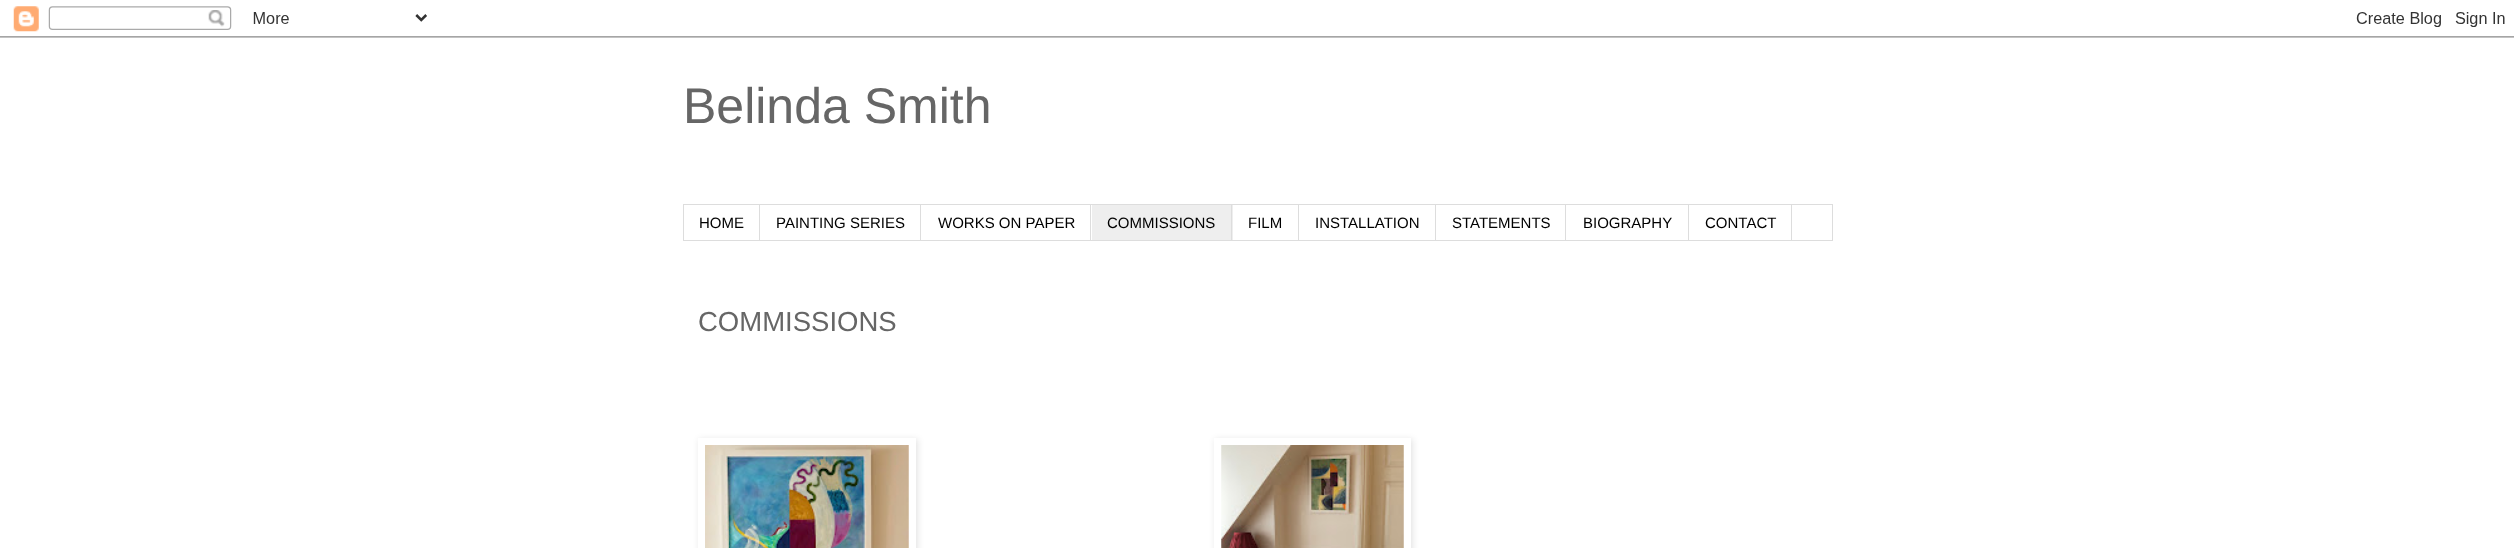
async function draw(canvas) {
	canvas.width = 2514;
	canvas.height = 548;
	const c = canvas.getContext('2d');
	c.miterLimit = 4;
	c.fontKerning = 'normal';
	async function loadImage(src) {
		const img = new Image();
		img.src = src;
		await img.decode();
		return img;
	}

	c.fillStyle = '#fff';
	c.fillRect(0, 0, 2514, 548);
	c.drawImage(await loadImage('img1.png'), 0, 6, 2514, 32);
	c.font = '50px Liberation Sans';
	c.fillStyle = '#666';
	c.fillText('Belinda Smith', 683, 123);
	c.strokeStyle = '#ddd';
	c.strokeRect(683.5, 204.5, 1149, 36);
	c.fillStyle = '#ddd';
	c.fillRect(759, 205, 1, 35);
	c.font = '15px Liberation Sans';
	c.fillStyle = '#000';
	c.fillText('HOME', 699, 228);
	c.fillStyle = '#ddd';
	c.fillRect(920, 205, 1, 35);
	c.fillStyle = '#000';
	c.fillText('PAINTING SERIES', 776, 228);
	c.fillStyle = '#ddd';
	c.fillRect(1090, 205, 1, 35);
	c.fillStyle = '#000';
	c.fillText('WORKS ON PAPER', 938, 228);
	c.fillStyle = '#eee';
	c.fillRect(1092, 205, 141, 35);
	c.fillStyle = '#ddd';
	c.fillRect(1231, 205, 1, 35);
	c.fillStyle = '#000';
	c.fillText('COMMISSIONS', 1107, 228);
	c.fillStyle = '#ddd';
	c.fillRect(1298, 205, 1, 35);
	c.fillStyle = '#000';
	c.fillText('FILM', 1248, 228);
	c.fillStyle = '#ddd';
	c.fillRect(1435, 205, 1, 35);
	c.fillStyle = '#000';
	c.fillText('INSTALLATION', 1315, 228);
	c.fillStyle = '#ddd';
	c.fillRect(1565, 205, 1, 35);
	c.fillStyle = '#000';
	c.fillText('STATEMENTS', 1452, 228);
	c.fillStyle = '#ddd';
	c.fillRect(1688, 205, 1, 35);
	c.fillStyle = '#000';
	c.fillText('BIOGRAPHY', 1583, 228);
	c.fillStyle = '#ddd';
	c.fillRect(1791, 205, 1, 35);
	c.fillStyle = '#000';
	c.fillText('CONTACT', 1705, 228);
	c.font = '27.5px Liberation Sans';
	c.fillStyle = '#666';
	c.fillText('COMMISSIONS', 698, 331);
	c.save();
	c.beginPath();
	c.moveTo(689, 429);
	c.lineTo(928, 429);
	c.lineTo(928, 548);
	c.lineTo(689, 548);
	c.closePath();
	c.moveTo(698, 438);
	c.lineTo(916, 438);
	c.lineTo(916, 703);
	c.lineTo(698, 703);
	c.closePath();
	c.clip('evenodd');
	c.fillStyle = '#0000001a';
	c.filter = 'blur(3px)';
	c.beginPath();
	c.rect(699, 439, 219, 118);
	c.fill();
	c.filter = 'none';
	c.restore();
	c.drawImage(await loadImage('img2.png'), 705, 445, 204, 103);
	c.save();
	c.beginPath();
	c.moveTo(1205, 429);
	c.lineTo(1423, 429);
	c.lineTo(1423, 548);
	c.lineTo(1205, 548);
	c.closePath();
	c.moveTo(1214, 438);
	c.lineTo(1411, 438);
	c.lineTo(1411, 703);
	c.lineTo(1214, 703);
	c.closePath();
	c.clip('evenodd');
	c.fillStyle = '#0000001a';
	c.filter = 'blur(3px)';
	c.beginPath();
	c.rect(1215, 439, 198, 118);
	c.fill();
	c.filter = 'none';
	c.restore();
	c.drawImage(await loadImage('img3.png'), 1221, 445, 183, 103);
}

draw(document.querySelector('canvas'));
